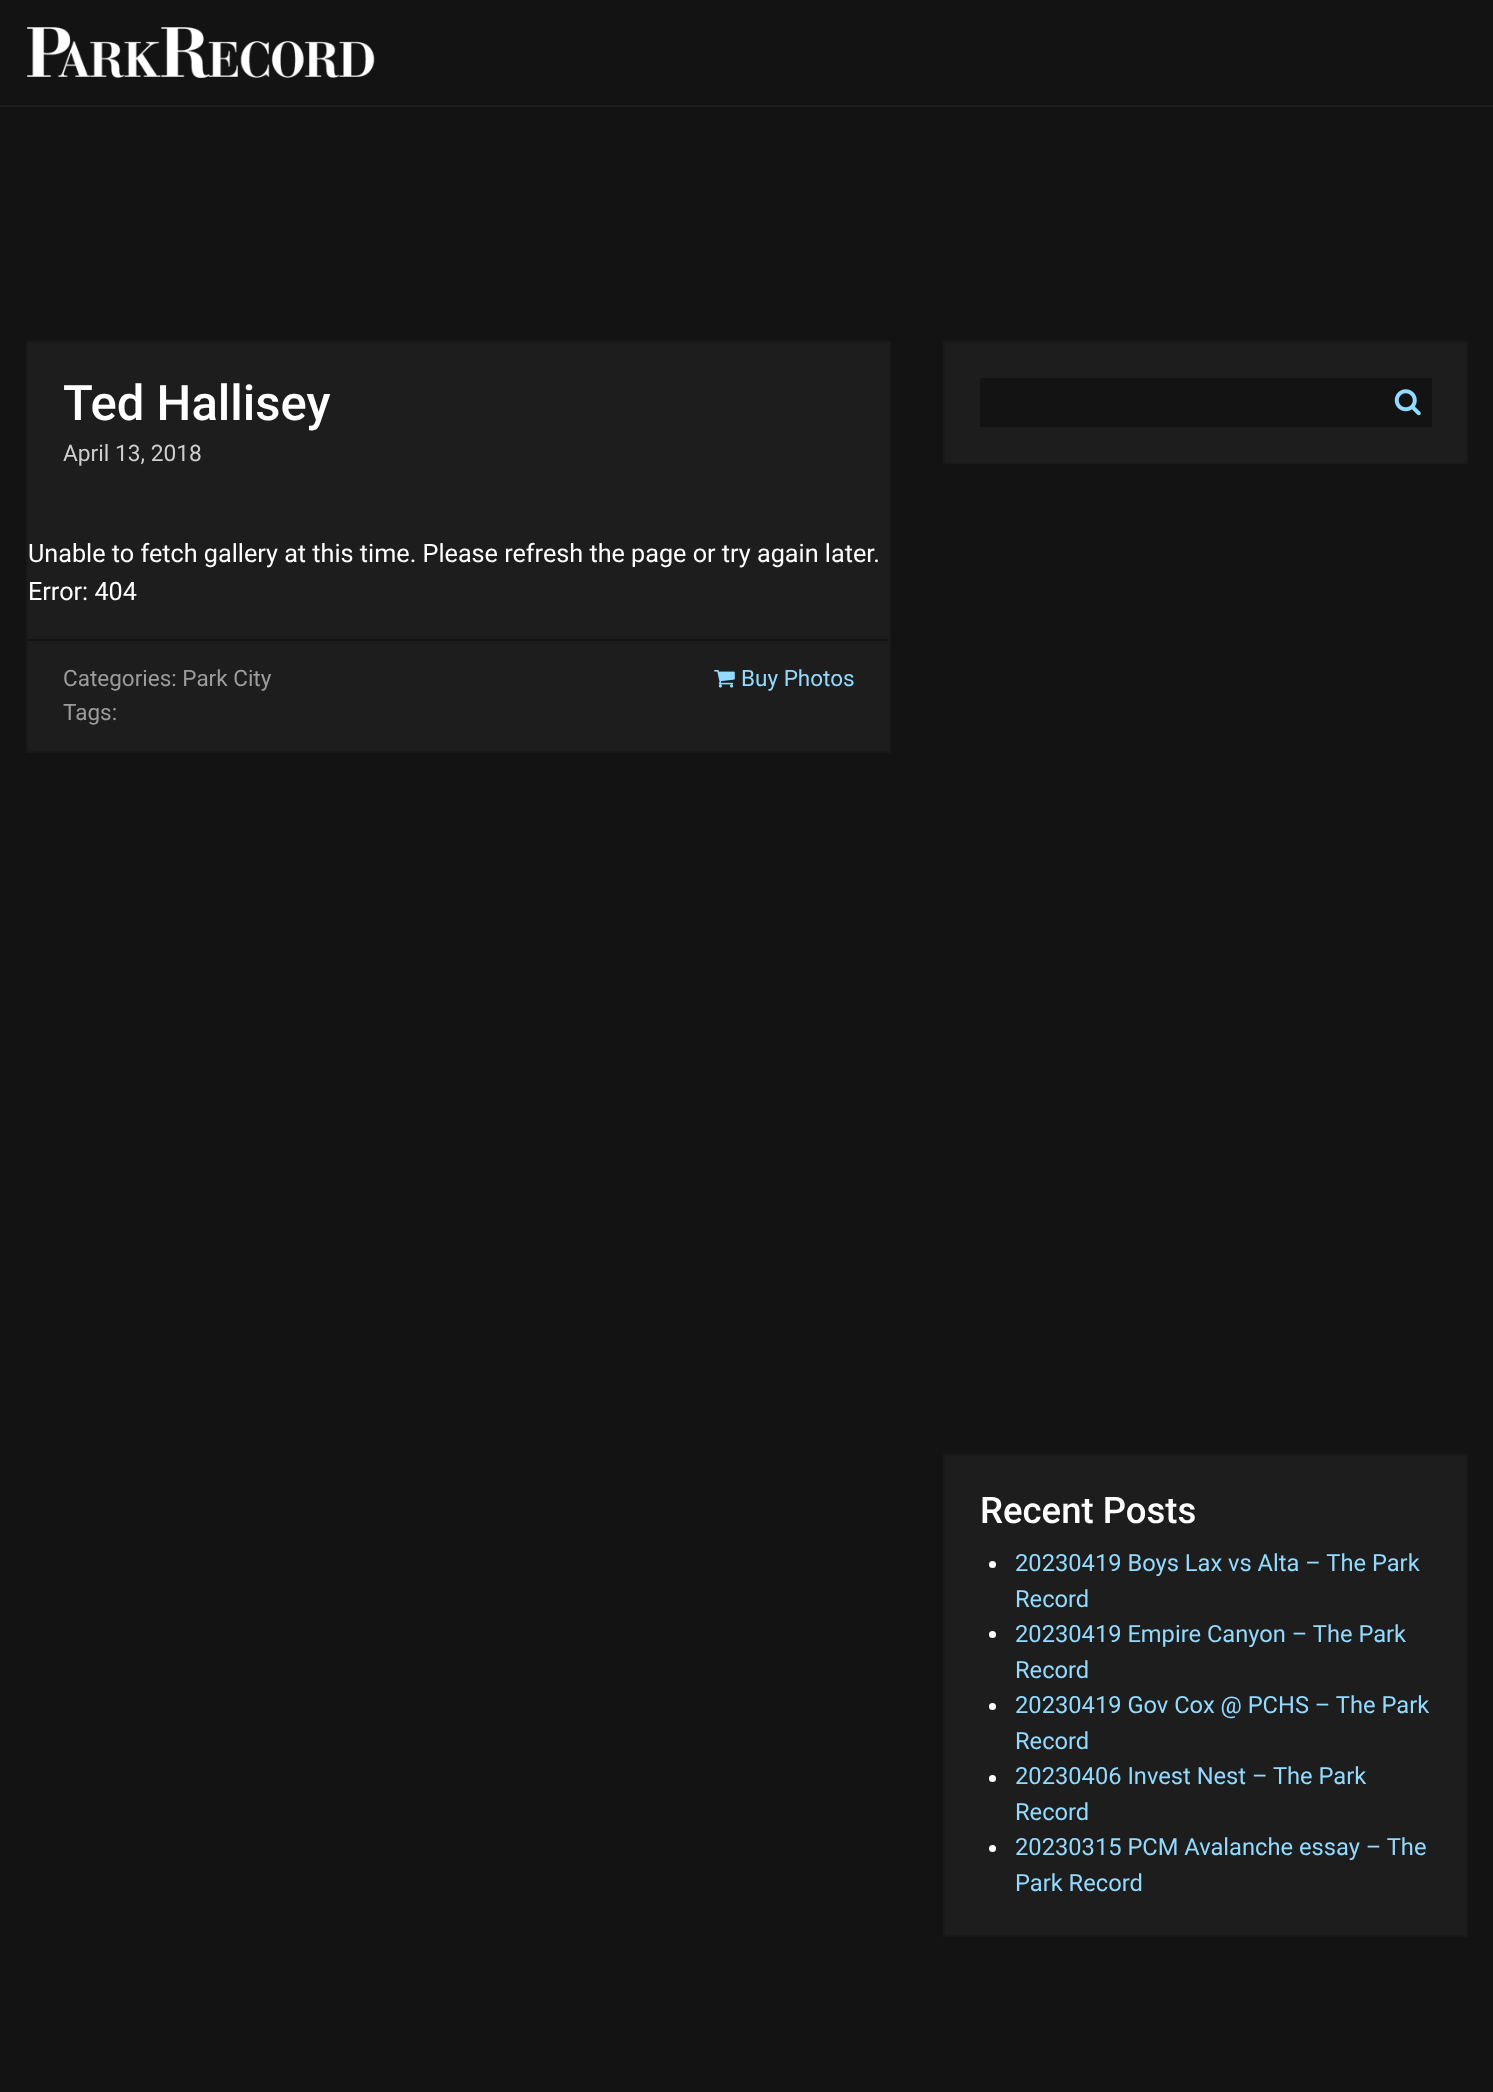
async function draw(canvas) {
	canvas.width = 1493;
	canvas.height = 2092;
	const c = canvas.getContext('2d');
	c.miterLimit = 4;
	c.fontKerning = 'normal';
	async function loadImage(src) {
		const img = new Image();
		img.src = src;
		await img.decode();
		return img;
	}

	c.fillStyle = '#131313';
	c.fillRect(0, 0, 1493, 2092);
	c.fillStyle = '#1d1d1d';
	c.fillRect(0, 105, 1493, 2);
	c.drawImage(await loadImage('img1.png'), 27, 27, 348, 51);
	c.beginPath();
	c.rect(27, 342, 863, 410);
	c.fill();
	c.strokeStyle = '#191919';
	c.lineWidth = 2;
	c.stroke();
	c.font = '500 49px Roboto';
	c.fillStyle = '#fff';
	c.fillText('Ted Hallisey', 63, 420);
	c.font = '22.75px Roboto';
	c.fillStyle = '#cecece';
	c.fillText('April 13, 2018', 63, 461);
	c.font = '25.2px Roboto';
	c.fillStyle = '#fff';
	c.fillText('Unable to fetch gallery at this time. Please refresh the page or try again later.', 28, 562);
	c.fillText('Error: 404', 28, 600);
	c.fillStyle = '#131313';
	c.fillRect(28, 639, 861, 2);
	c.font = '22.5px Roboto';
	c.fillStyle = '#9c9c9c';
	c.fillText('Categories: Park City', 63, 686);
	c.fillText('Tags:', 63, 720);
	c.drawImage(await loadImage('img2.png'), 714, 670, 21, 18);
	c.fillStyle = '#93daff';
	c.fillText('Buy Photos', 741, 686);
	c.fillStyle = '#1d1d1d';
	c.beginPath();
	c.rect(944, 342, 523, 121);
	c.fill();
	c.stroke();
	c.fillStyle = '#131313';
	c.fillRect(980, 378, 452, 49);
	c.drawImage(await loadImage('img3.png'), 1394, 389, 27, 27);
	c.fillStyle = '#1d1d1d';
	c.beginPath();
	c.rect(944, 1455, 523, 481);
	c.fill();
	c.stroke();
	c.font = '500 36.5px Roboto';
	c.fillStyle = '#fff';
	c.fillText('Recent Posts', 980, 1523);
	c.beginPath();
	c.arc(992.5, 1564.5, 3.5, 0, 2 * Math.PI);
	c.fill();
	c.font = '23.7px Roboto';
	c.fillStyle = '#93daff';
	c.fillText('20230419 Boys Lax vs Alta – The Park', 1015, 1571);
	c.fillText('Record', 1015, 1607);
	c.fillStyle = '#fff';
	c.beginPath();
	c.arc(992.5, 1634.5, 3.5, 0, 2 * Math.PI);
	c.fill();
	c.fillStyle = '#93daff';
	c.fillText('20230419 Empire Canyon – The Park', 1015, 1642);
	c.fillText('Record', 1015, 1678);
	c.fillStyle = '#fff';
	c.beginPath();
	c.arc(992.5, 1706.5, 3.5, 0, 2 * Math.PI);
	c.fill();
	c.fillStyle = '#93daff';
	c.fillText('20230419 Gov Cox @ PCHS – The Park', 1015, 1713);
	c.fillText('Record', 1015, 1749);
	c.fillStyle = '#fff';
	c.beginPath();
	c.arc(992.5, 1778.5, 3.5, 0, 2 * Math.PI);
	c.fill();
	c.fillStyle = '#93daff';
	c.fillText('20230406 Invest Nest – The Park', 1015, 1784);
	c.fillText('Record', 1015, 1820);
	c.fillStyle = '#fff';
	c.beginPath();
	c.arc(992.5, 1848.5, 3.5, 0, 2 * Math.PI);
	c.fill();
	c.fillStyle = '#93daff';
	c.fillText('20230315 PCM Avalanche essay – The', 1015, 1855);
	c.fillText('Park Record', 1015, 1891);
}

draw(document.querySelector('canvas'));
